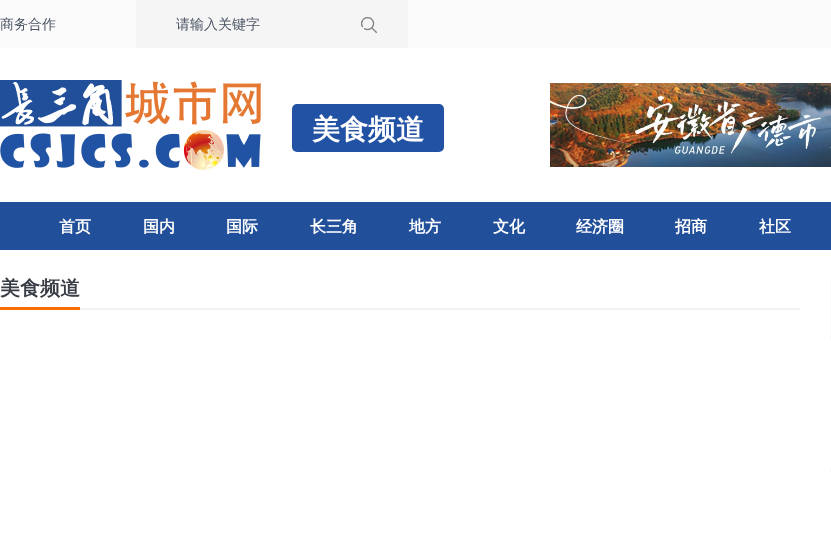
async function draw(canvas) {
	canvas.width = 831;
	canvas.height = 555;
	const c = canvas.getContext('2d');
	c.miterLimit = 4;
	c.fontKerning = 'normal';
	async function loadImage(src) {
		const img = new Image();
		img.src = src;
		await img.decode();
		return img;
	}

	c.fillStyle = '#fff';
	c.fillRect(0, 0, 831, 555);
	c.fillStyle = '#fbfbfb';
	c.fillRect(0, 0, 831, 48);
	c.font = '500 14px WenQuanYi Zen Hei';
	c.fillStyle = '#4b5563';
	c.fillText('商务合作', 0, 29);
	c.fillStyle = '#f5f5f5';
	c.fillRect(136, 0, 272, 48);
	c.fillStyle = '#4b5563';
	c.fillText('请输入关键字', 176, 29);
	c.drawImage(await loadImage('img1.png'), 361, 17, 16, 16);
	c.drawImage(await loadImage('img2.png'), 0, 80, 261, 90);
	c.fillStyle = '#2252a3';
	c.beginPath();
	c.roundRect(292, 104, 152, 48, 5);
	c.fill();
	c.font = 'bold 28px WenQuanYi Zen Hei';
	c.fillStyle = '#fff';
	c.fillText('美食频道', 312, 139);
	c.drawImage(await loadImage('img3.png'), 550, 83, 281, 84);
	c.fillStyle = '#224f99';
	c.fillRect(0, 202, 831, 48);
	c.font = 'bold 16px WenQuanYi Zen Hei';
	c.fillStyle = '#fff';
	for (const [text, x, y] of [
		['首页', 59, 232],
		['国内', 143, 232],
		['国际', 226, 232],
		['长三角', 310, 232],
		['地方', 409, 232],
		['文化', 493, 232],
		['经济圈', 576, 232],
		['招商', 675, 232],
		['社区', 759, 232],
	]) {
		c.fillText(text, x, y);
	}
	c.fillStyle = '#f3f2f2';
	c.fillRect(80, 308, 720, 2);
	c.fillStyle = '#f96d00';
	c.fillRect(0, 307, 80, 3);
	c.font = 'bold 20px WenQuanYi Zen Hei';
	c.fillStyle = '#393e46';
	c.fillText('美食频道', 0, 295);
	c.fillStyle = '#fafafc';
	c.fillRect(830, 280, 1, 60);
	c.fillStyle = '#eee';
	c.fillRect(830, 470, 1, 1);
}

draw(document.querySelector('canvas'));
